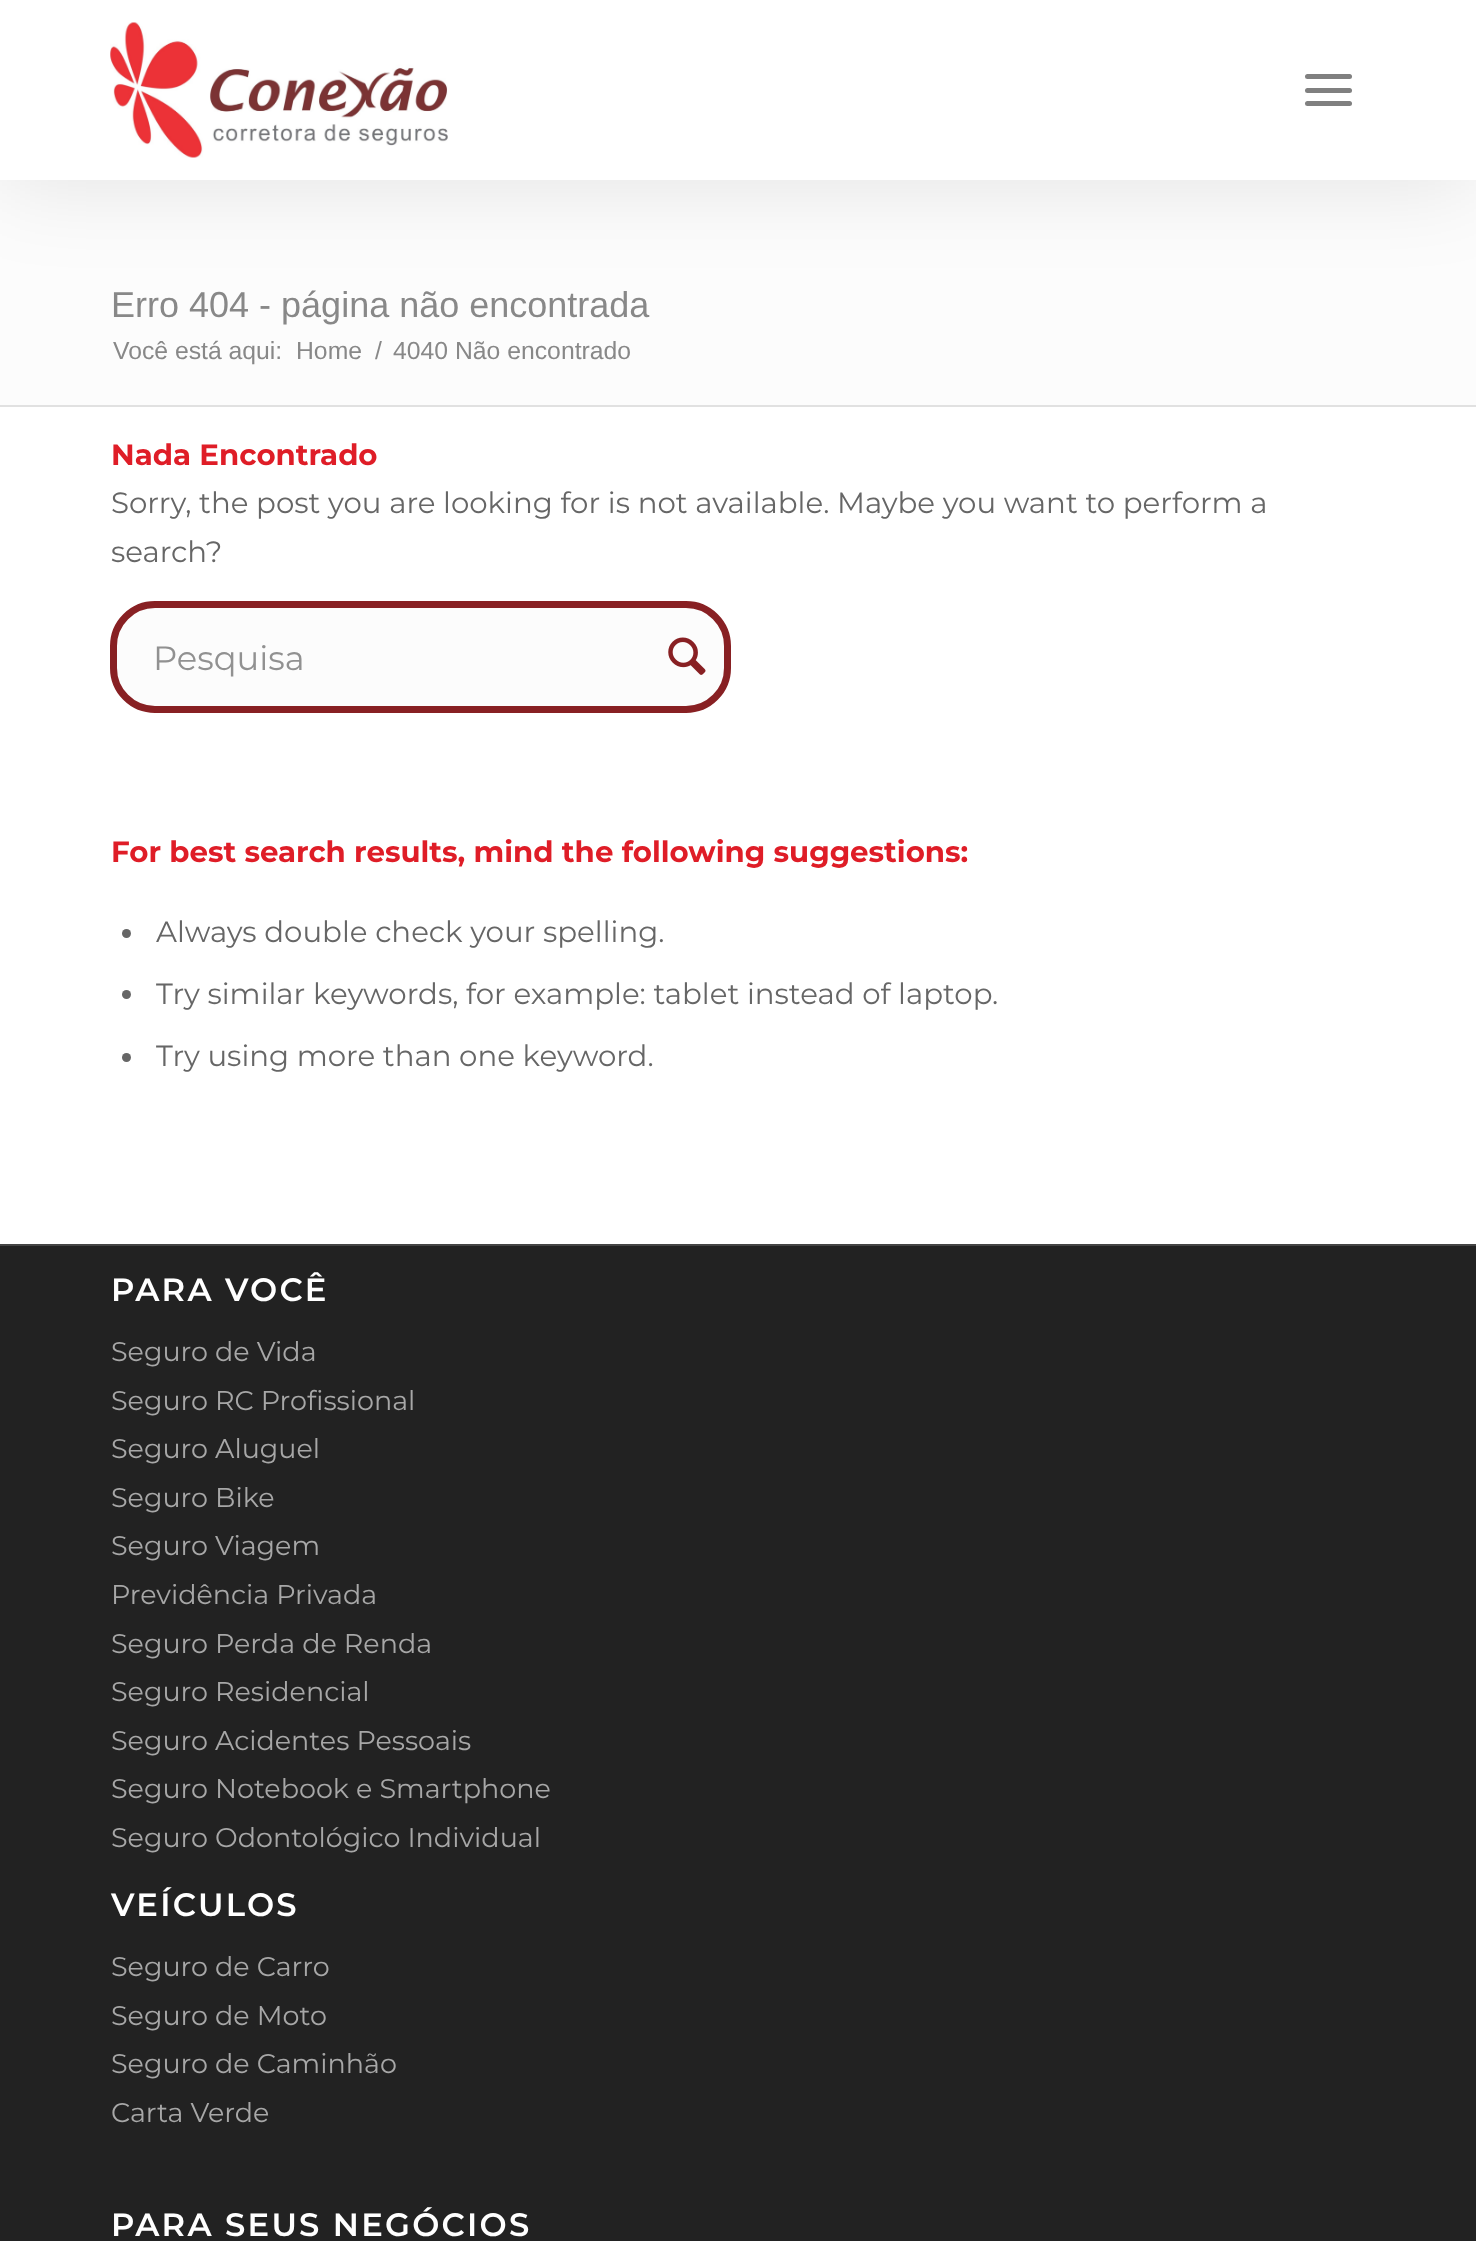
async function draw(canvas) {
	canvas.width = 1476;
	canvas.height = 2241;
	const c = canvas.getContext('2d');
	c.miterLimit = 4;
	c.fontKerning = 'normal';
	async function loadImage(src) {
		const img = new Image();
		img.src = src;
		await img.decode();
		return img;
	}

	c.fillStyle = '#fff';
	c.fillRect(0, 0, 1476, 2241);
	c.fillStyle = '#fcfcfc';
	c.fillRect(0, 180, 1476, 225);
	c.fillStyle = '#0000001a';
	c.filter = 'blur(45px)';
	c.beginPath();
	c.rect(0, 2, 1476, 180);
	c.fill();
	c.filter = 'none';
	c.fillStyle = '#fff';
	c.fillRect(0, 0, 1476, 180);
	c.drawImage(await loadImage('img1.png'), 110, 22, 338, 136);
	c.fillStyle = '#808080';
	c.beginPath();
	c.roundRect(1305, 88, 47, 5, 2.5);
	c.fill();
	c.beginPath();
	c.roundRect(1305, 74, 47, 5, 2.5);
	c.fill();
	c.beginPath();
	c.roundRect(1305, 101, 47, 5, 2.5);
	c.fill();
	c.font = '36px Arimo';
	c.fillStyle = '#888';
	c.fillText('Erro 404 - página não encontrada', 111, 317);
	c.font = '24.75px Arimo';
	for (const [text, x, y] of [
		['Você está aqui:', 113, 359],
		['Home', 296, 359],
		['/', 375, 359],
		['4040 Não encontrado', 393, 359],
	]) {
		c.fillText(text, x, y);
	}
	c.fillStyle = '#e1e1e1';
	c.fillRect(0, 405, 1476, 2);
	c.font = 'bold 29.25px Montserrat';
	c.fillStyle = '#df1d27';
	c.fillText('Nada Encontrado', 111, 465);
	c.font = '29.25px Montserrat';
	c.fillStyle = '#666';
	c.fillText('Sorry, the post you are looking for is not available. Maybe you want to perform a', 111, 513);
	c.fillText('search?', 111, 562);
	c.fillStyle = '#fcfcfc';
	c.beginPath();
	c.roundRect(113.5, 604.5, 614, 105, 41.5);
	c.fill();
	c.strokeStyle = '#882023';
	c.lineWidth = 7;
	c.stroke();
	c.font = '33.75px Montserrat';
	c.fillStyle = '#919191';
	c.fillText('Pesquisa', 153, 670);
	c.drawImage(await loadImage('img2.png'), 668, 637, 38, 38);
	c.font = 'bold 29.25px Montserrat';
	c.fillStyle = '#df1d27';
	c.fillText('For best search results, mind the following suggestions:', 111, 862);
	c.fillStyle = '#666';
	c.beginPath();
	c.arc(126.5, 933.5, 4.5, 0, 2 * Math.PI);
	c.fill();
	c.font = '29.25px Montserrat';
	c.fillText('Always double check your spelling.', 156, 942);
	c.beginPath();
	c.arc(126.5, 994.5, 4.5, 0, 2 * Math.PI);
	c.fill();
	c.fillText('Try similar keywords, for example: tablet instead of laptop.', 156, 1004);
	c.beginPath();
	c.arc(126.5, 1057.5, 4.5, 0, 2 * Math.PI);
	c.fill();
	c.fillText('Try using more than one keyword.', 156, 1066);
	c.fillStyle = '#222';
	c.fillRect(0, 1246, 1476, 995);
	c.fillStyle = '#444';
	c.fillRect(0, 1244, 1476, 2);
	c.letterSpacing = '2.25px';
	c.font = '600 32.25px Montserrat';
	c.fillStyle = '#fff';
	c.fillText('PARA VOCÊ', 111, 1301);
	c.letterSpacing = '0px';
	c.font = '27px Montserrat';
	c.fillStyle = '#a7a7a7';
	for (const [text, x, y] of [
		['Seguro de Vida', 111, 1361],
		['Seguro RC Profissional', 111, 1410],
		['Seguro Aluguel', 111, 1458],
		['Seguro Bike', 111, 1507],
		['Seguro Viagem', 111, 1555],
		['Previdência Privada', 111, 1604],
		['Seguro Perda de Renda', 111, 1653],
		['Seguro Residencial', 111, 1701],
		['Seguro Acidentes Pessoais', 111, 1750],
		['Seguro Notebook e Smartphone', 111, 1798],
		['Seguro Odontológico Individual', 111, 1847],
	]) {
		c.fillText(text, x, y);
	}
	c.letterSpacing = '2.25px';
	c.font = '600 32.25px Montserrat';
	c.fillStyle = '#fff';
	c.fillText('VEÍCULOS', 111, 1916);
	c.letterSpacing = '0px';
	c.font = '27px Montserrat';
	c.fillStyle = '#a7a7a7';
	for (const [text, x, y] of [
		['Seguro de Carro', 111, 1976],
		['Seguro de Moto', 111, 2025],
		['Seguro de Caminhão', 111, 2073],
		['Carta Verde', 111, 2122],
	]) {
		c.fillText(text, x, y);
	}
	c.letterSpacing = '2.25px';
	c.font = '600 32.25px Montserrat';
	c.fillStyle = '#fff';
	c.fillText('PARA SEUS NEGÓCIOS', 111, 2236);
}

draw(document.querySelector('canvas'));
